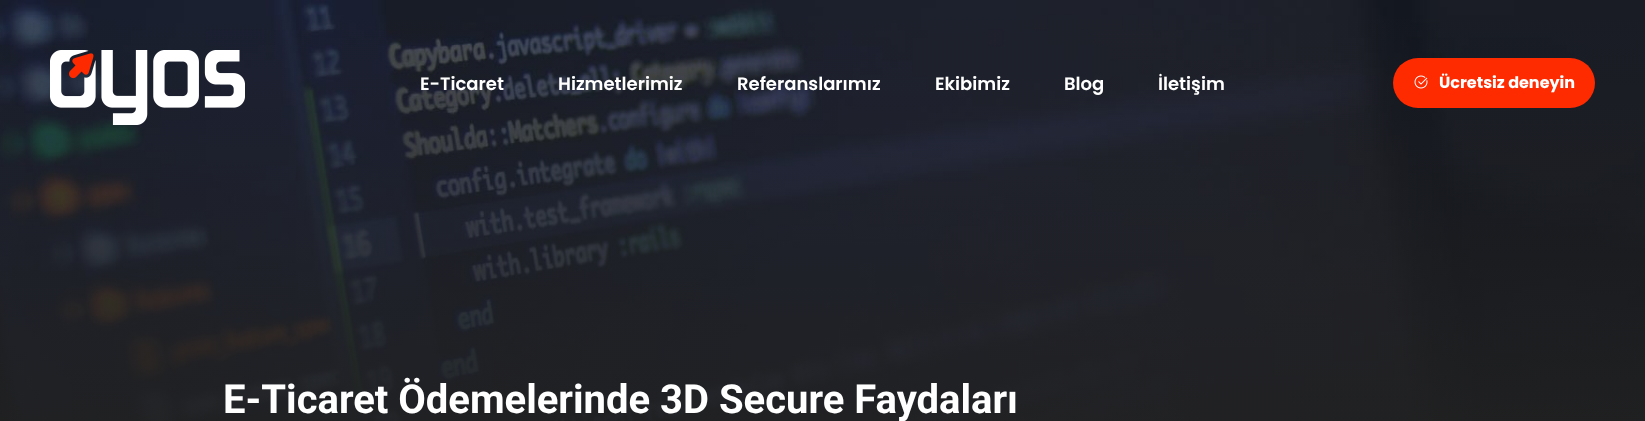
async function draw(canvas) {
	canvas.width = 1645;
	canvas.height = 421;
	const c = canvas.getContext('2d');
	c.miterLimit = 4;
	c.fontKerning = 'normal';
	async function loadImage(src) {
		const img = new Image();
		img.src = src;
		await img.decode();
		return img;
	}
	let gradient;

	c.fillStyle = '#141e2a';
	c.fillRect(0, 0, 1645, 421);
	c.drawImage(await loadImage('img3.png'), 0, 0, 1645, 421);
	gradient = c.createLinearGradient(823, 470, 823, 0);
	gradient.addColorStop(0, '#212121');
	gradient.addColorStop(1, '#21212100');
	c.fillStyle = gradient;
	c.fillRect(0, 19, 1645, 402);
	c.drawImage(await loadImage('img1.png'), 50, 50, 195, 75);
	c.font = '600 18px Poppins';
	c.fillStyle = '#fff';
	for (const [text, x, y] of [
		['E-Ticaret', 420, 90],
		['Hizmetlerimiz', 558, 90],
		['Referanslarımız', 737, 90],
		['Ekibimiz', 935, 90],
		['Blog', 1064, 90],
		['İletişim', 1158, 90],
	]) {
		c.fillText(text, x, y);
	}
	c.fillStyle = '#fe2a00';
	c.beginPath();
	c.roundRect(1393, 58, 202, 50, 25);
	c.fill();
	c.drawImage(await loadImage('img2.png'), 1414, 75, 14, 14);
	c.font = 'bold 16px Poppins';
	c.fillStyle = '#fff';
	c.fillText('Ücretsiz deneyin', 1439, 88);
	c.font = 'bold 40px Roboto';
	c.fillText('E-Ticaret Ödemelerinde 3D Secure Faydaları', 223, 413);
}

draw(document.querySelector('canvas'));
